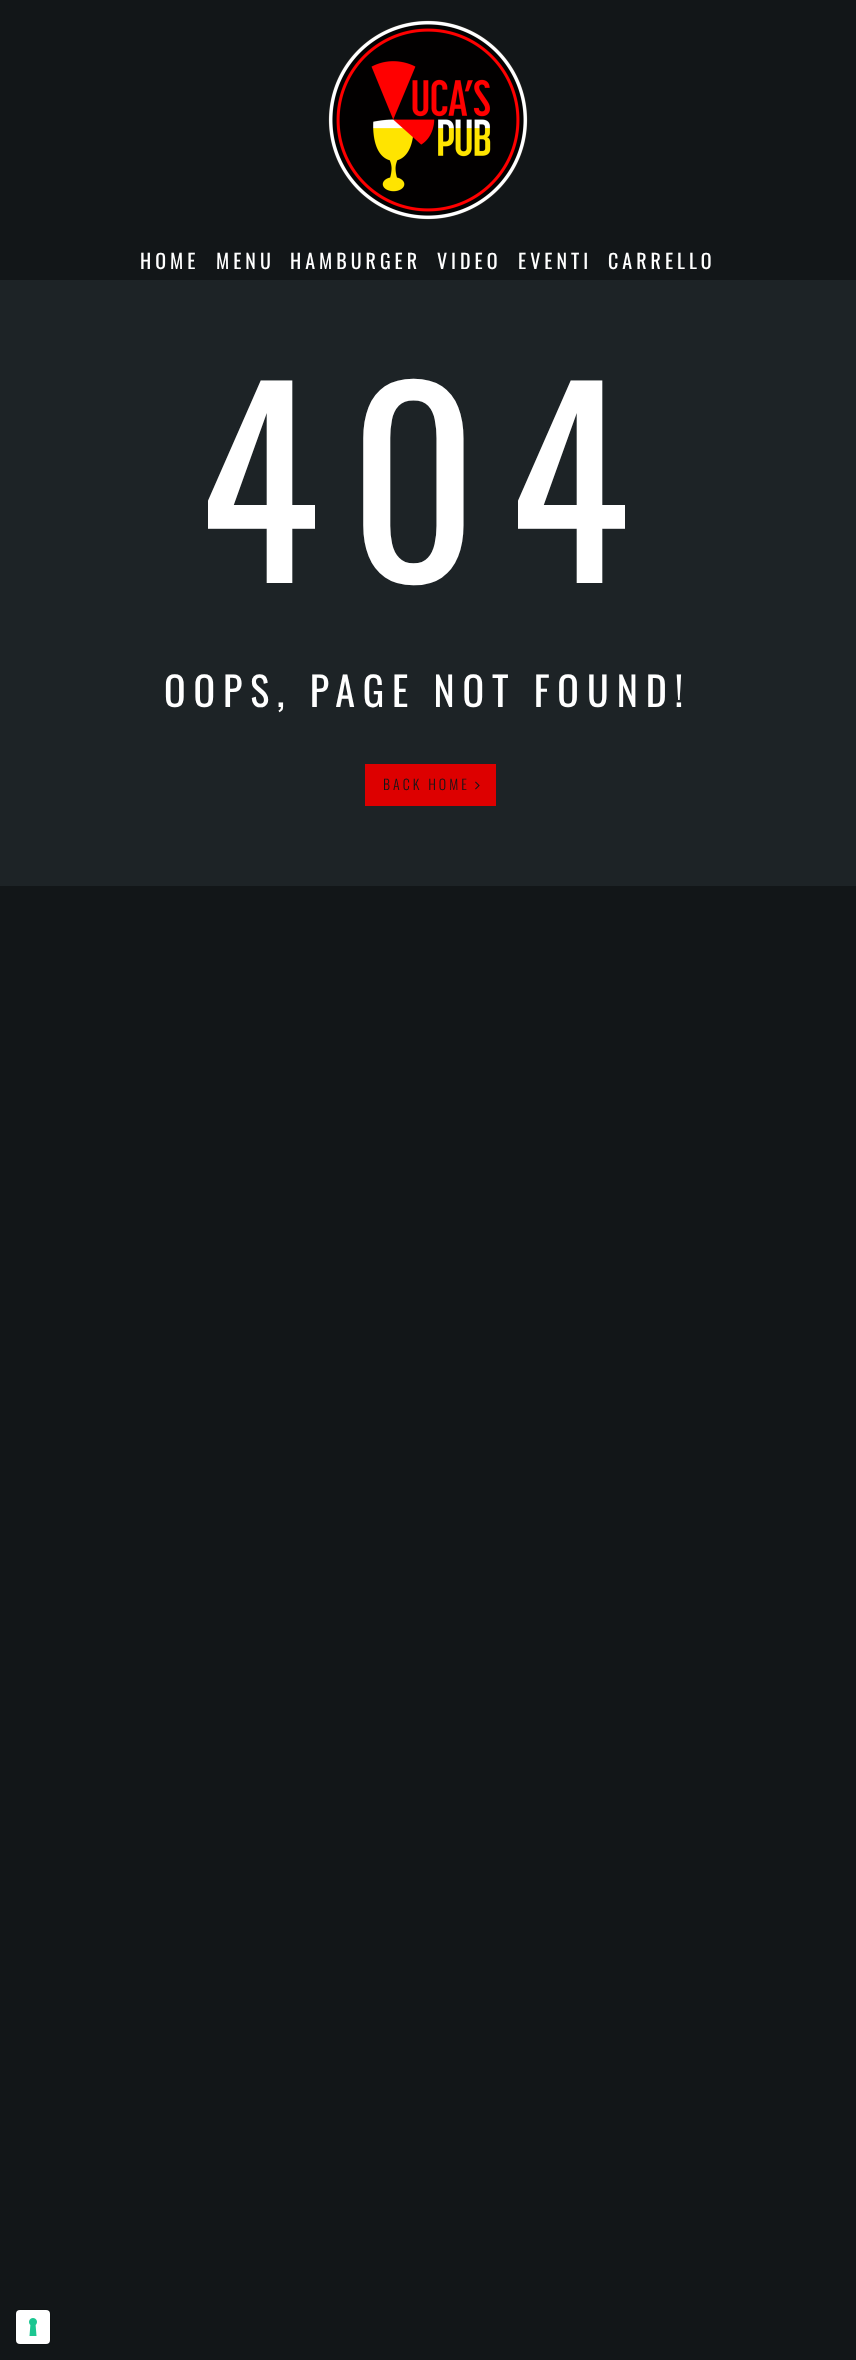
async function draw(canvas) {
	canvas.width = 856;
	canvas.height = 2360;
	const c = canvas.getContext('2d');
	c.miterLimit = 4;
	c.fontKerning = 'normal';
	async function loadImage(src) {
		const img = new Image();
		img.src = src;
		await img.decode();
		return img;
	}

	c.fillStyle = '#121618';
	c.fillRect(0, 0, 856, 2360);
	c.drawImage(await loadImage('img1.png'), 328, 20, 200, 200);
	c.letterSpacing = '4px';
	c.font = '20px Oswald';
	c.fillStyle = '#fff';
	for (const [text, x, y] of [
		['HOME', 140, 269],
		['MENU', 216, 269],
		['HAMBURGER', 290, 269],
		['VIDEO', 437, 269],
		['EVENTI', 518, 269],
		['CARRELLO', 608, 269],
	]) {
		c.fillText(text, x, y);
	}
	c.fillStyle = '#1d2326';
	c.fillRect(0, 280, 856, 606);
	c.letterSpacing = '30px';
	c.font = '250px Oswald';
	c.fillStyle = '#fff';
	c.fillText('404', 198, 583);
	c.letterSpacing = '8px';
	c.font = '40px Oswald';
	c.fillText('OOPS, PAGE NOT FOUND!', 164, 707);
	c.fillStyle = '#d00';
	c.fillRect(365, 764, 131, 42);
	c.letterSpacing = '3px';
	c.font = '300 14px Oswald';
	c.fillStyle = '#121618';
	c.fillText('BACK HOME', 383, 790);
	c.drawImage(await loadImage('img2.png'), 475, 781, 5, 9);
	c.beginPath();
	c.roundRect(15.5, 2309.5, 35, 35, 4.5);
	c.strokeStyle = '#0f1314';
	c.stroke();
	c.fillStyle = '#fff';
	c.beginPath();
	c.roundRect(16, 2310, 34, 34, 4);
	c.fill();
	c.drawImage(await loadImage('img3.png'), 29, 2318, 8, 18);
}

draw(document.querySelector('canvas'));
